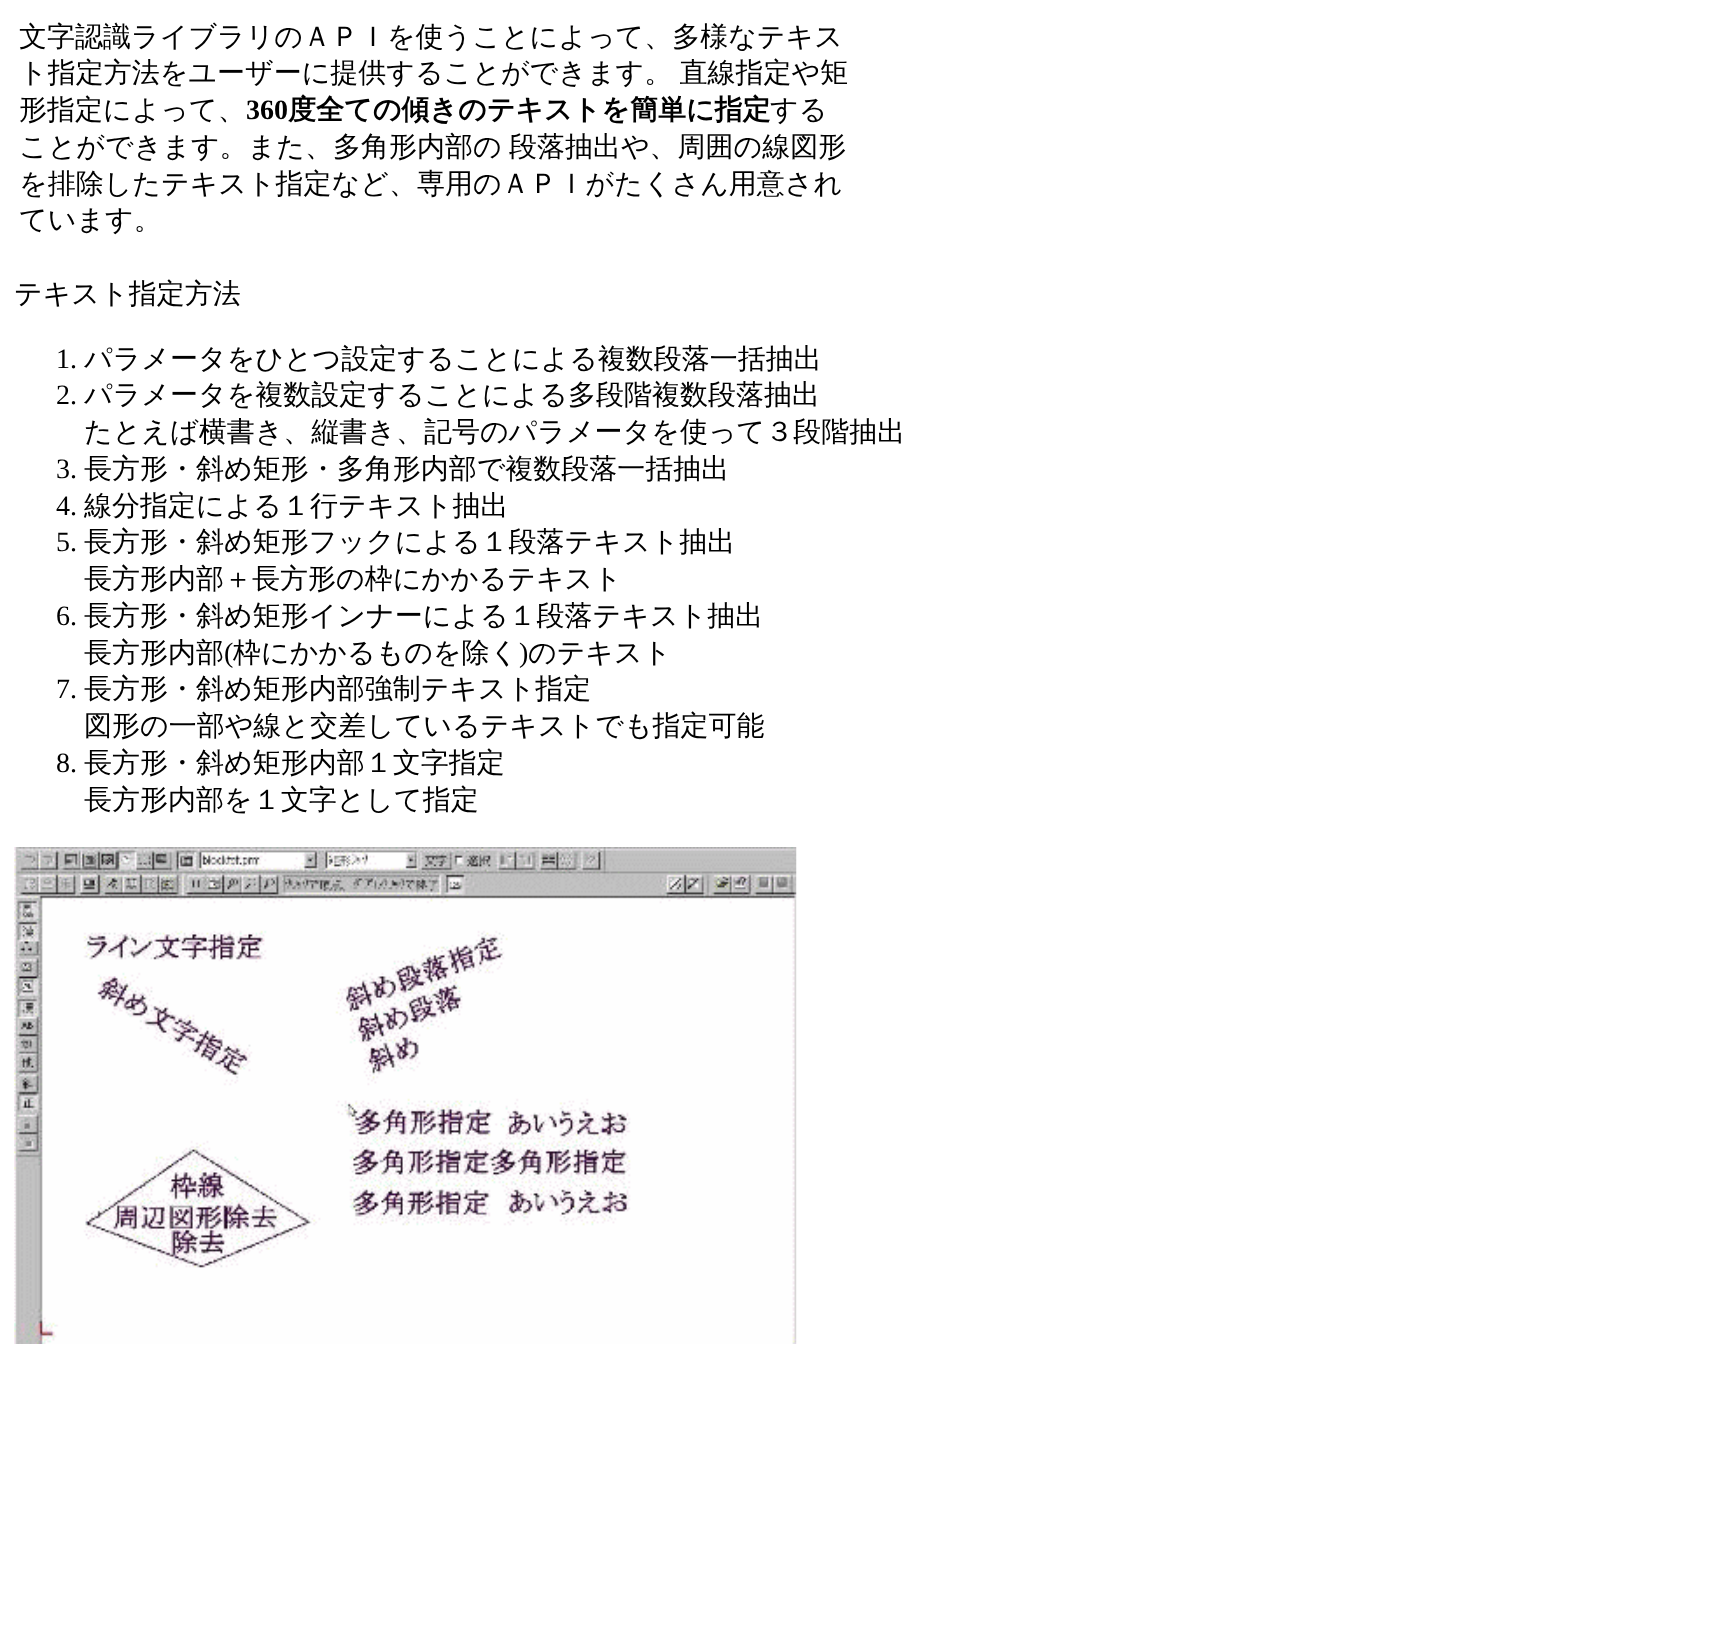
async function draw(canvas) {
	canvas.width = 1731;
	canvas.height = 1634;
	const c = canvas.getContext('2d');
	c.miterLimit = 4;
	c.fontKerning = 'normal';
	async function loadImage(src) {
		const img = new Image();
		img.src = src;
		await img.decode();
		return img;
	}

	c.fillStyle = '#fff';
	c.fillRect(0, 0, 1731, 1634);
	c.font = '500 28px WenQuanYi Zen Hei';
	c.fillStyle = '#000';
	c.fillText('文字認識ライブラリのＡＰＩを使うことによって、多様なテキス', 19, 46);
	c.wordSpacing = '-1px';
	c.fillText('ト指定方法をユーザーに提供することができます。 直線指定や矩', 19, 82);
	c.wordSpacing = '0px';
	c.fillText('形指定によって、', 19, 119);
	c.font = 'bold 28px Liberation Serif';
	c.fillText('360', 246, 119);
	c.font = 'bold 28px WenQuanYi Zen Hei';
	c.fillText('度全ての傾きのテキストを簡単に指定', 288, 119);
	c.font = '500 28px WenQuanYi Zen Hei';
	c.fillText('する', 770, 119);
	c.wordSpacing = '-1px';
	c.fillText('ことができます。また、多角形内部の 段落抽出や、周囲の線図形', 19, 156);
	c.wordSpacing = '0px';
	for (const [text, x, y] of [
		['を排除したテキスト指定など、専用のＡＰＩがたくさん用意され', 19, 193],
		['ています。', 19, 229],
		['テキスト指定方法', 14, 303],
	]) {
		c.fillText(text, x, y);
	}
	c.font = '28px Liberation Serif';
	c.fillText('1.', 56, 368);
	c.font = '500 28px WenQuanYi Zen Hei';
	c.fillText('パラメータをひとつ設定することによる複数段落一括抽出', 84, 368);
	c.font = '28px Liberation Serif';
	c.fillText('2.', 56, 404);
	c.font = '500 28px WenQuanYi Zen Hei';
	c.fillText('パラメータを複数設定することによる多段階複数段落抽出', 84, 404);
	c.fillText('たとえば横書き、縦書き、記号のパラメータを使って３段階抽出', 84, 441);
	c.font = '28px Liberation Serif';
	c.fillText('3.', 56, 478);
	c.font = '500 28px WenQuanYi Zen Hei';
	c.fillText('長方形・斜め矩形・多角形内部で複数段落一括抽出', 84, 478);
	c.font = '28px Liberation Serif';
	c.fillText('4.', 56, 515);
	c.font = '500 28px WenQuanYi Zen Hei';
	c.fillText('線分指定による１行テキスト抽出', 84, 515);
	c.font = '28px Liberation Serif';
	c.fillText('5.', 56, 551);
	c.font = '500 28px WenQuanYi Zen Hei';
	c.fillText('長方形・斜め矩形フックによる１段落テキスト抽出', 84, 551);
	c.fillText('長方形内部＋長方形の枠にかかるテキスト', 84, 588);
	c.font = '28px Liberation Serif';
	c.fillText('6.', 56, 625);
	c.font = '500 28px WenQuanYi Zen Hei';
	c.fillText('長方形・斜め矩形インナーによる１段落テキスト抽出', 84, 625);
	c.fillText('長方形内部', 84, 662);
	c.font = '28px Liberation Serif';
	c.fillText('(', 224, 662);
	c.font = '500 28px WenQuanYi Zen Hei';
	c.fillText('枠にかかるものを除く', 233, 662);
	c.font = '28px Liberation Serif';
	c.fillText(')', 519, 662);
	c.font = '500 28px WenQuanYi Zen Hei';
	c.fillText('のテキスト', 528, 662);
	c.font = '28px Liberation Serif';
	c.fillText('7.', 56, 698);
	c.font = '500 28px WenQuanYi Zen Hei';
	c.fillText('長方形・斜め矩形内部強制テキスト指定', 84, 698);
	c.fillText('図形の一部や線と交差しているテキストでも指定可能', 84, 735);
	c.font = '28px Liberation Serif';
	c.fillText('8.', 56, 772);
	c.font = '500 28px WenQuanYi Zen Hei';
	c.fillText('長方形・斜め矩形内部１文字指定', 84, 772);
	c.fillText('長方形内部を１文字として指定', 84, 809);
	c.drawImage(await loadImage('img1.png'), 14, 847, 783, 497);
}

draw(document.querySelector('canvas'));
